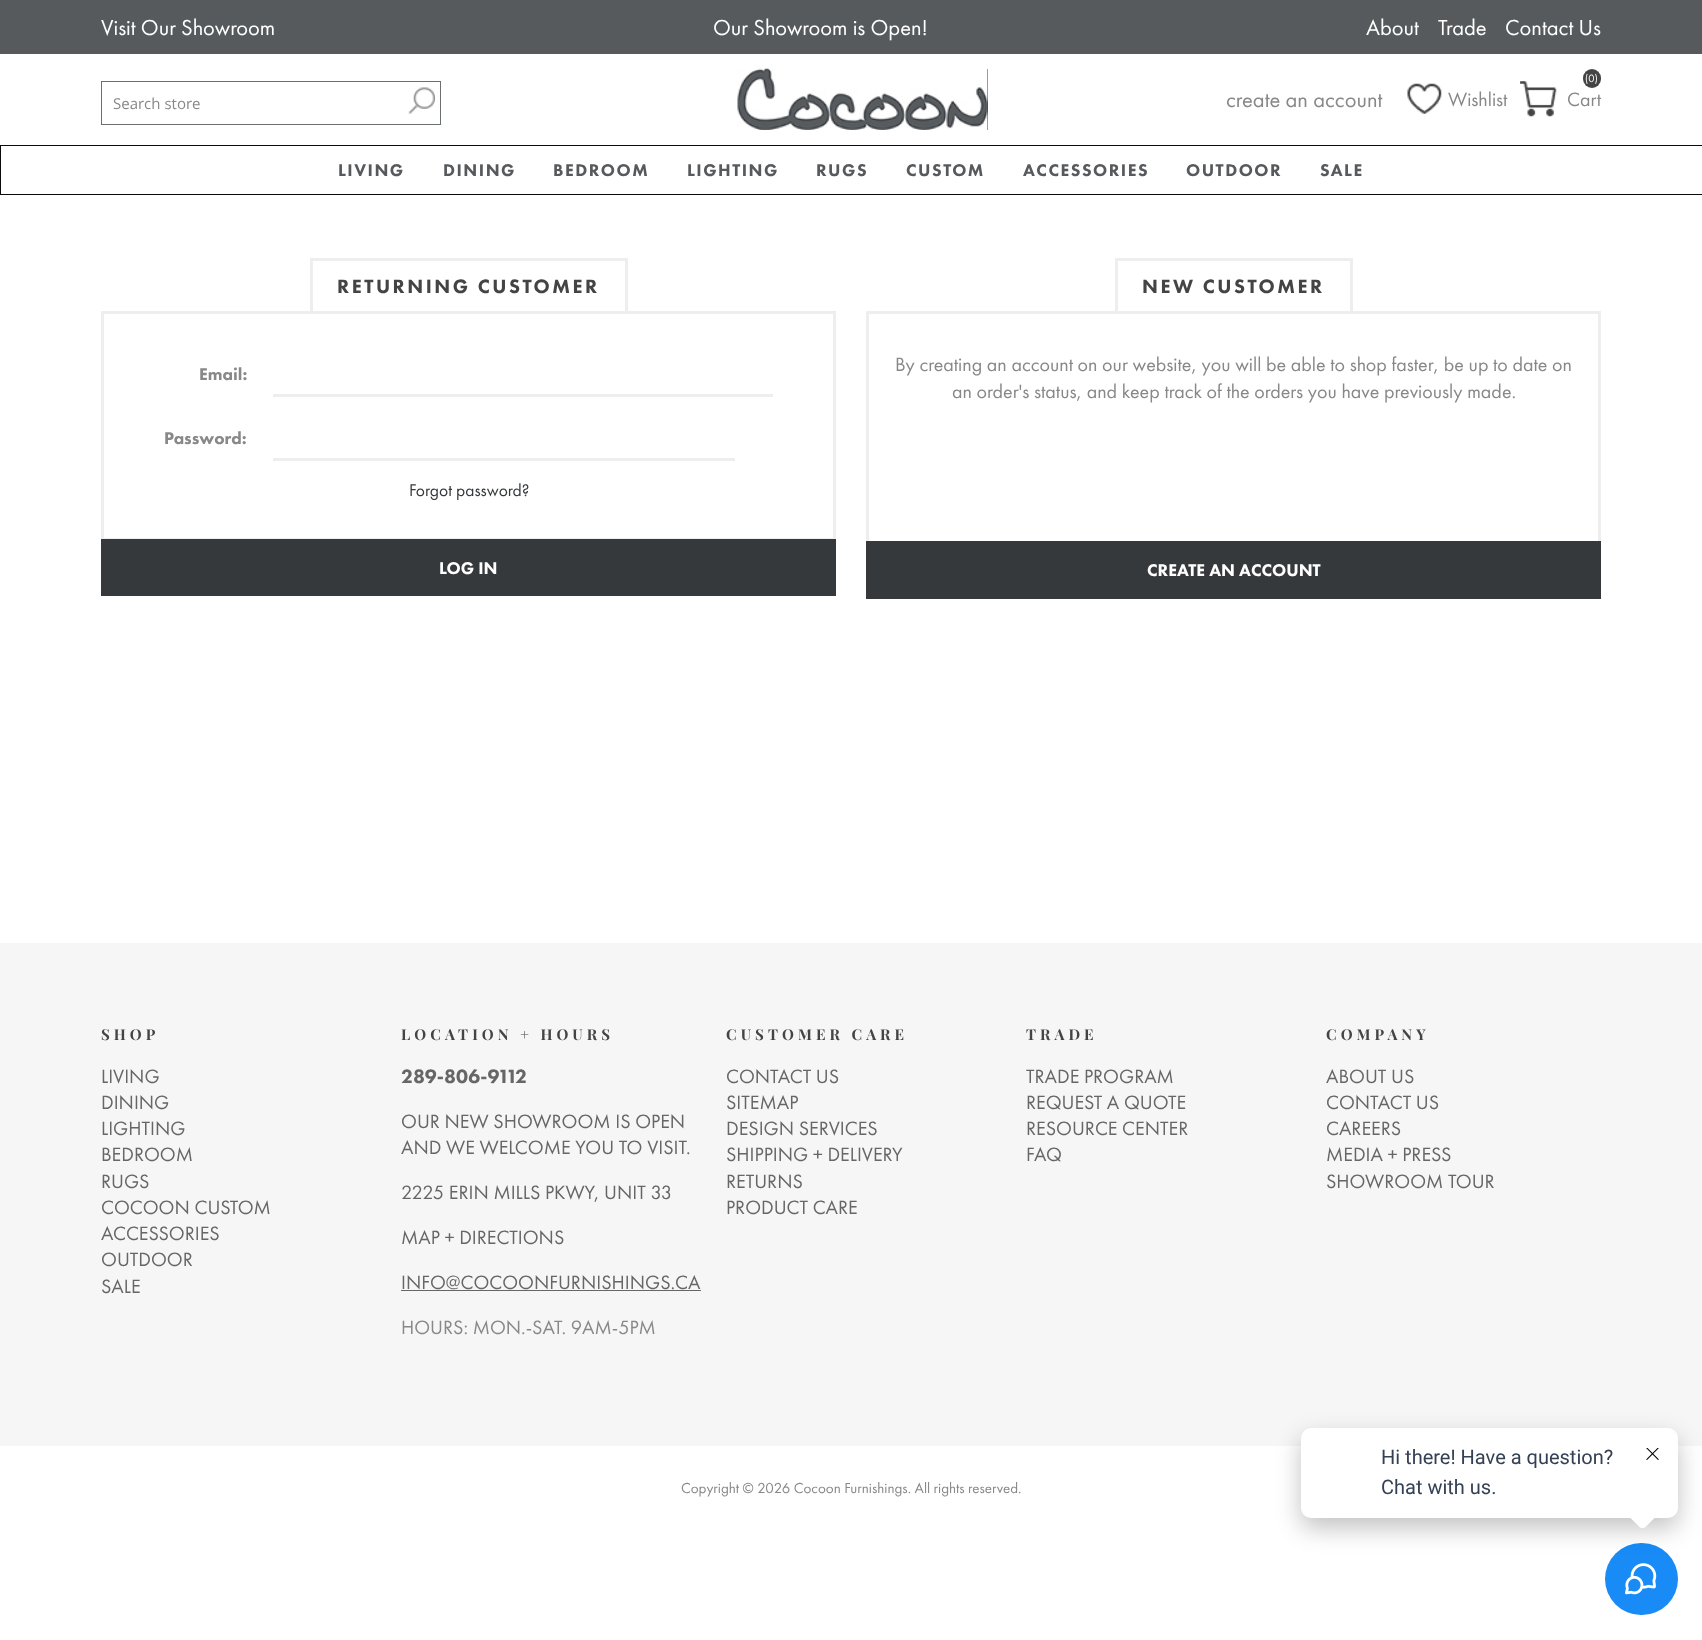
async function draw(canvas) {
	canvas.width = 1702;
	canvas.height = 1640;
	const c = canvas.getContext('2d');
	c.miterLimit = 4;
	c.fontKerning = 'normal';
	async function loadImage(src) {
		const img = new Image();
		img.src = src;
		await img.decode();
		return img;
	}

	c.fillStyle = '#fff';
	c.fillRect(0, 0, 1702, 1640);
	c.fillStyle = '#575a5d';
	c.fillRect(0, 0, 1702, 54);
	c.font = '22.5px Futura PT';
	c.fillStyle = '#fff';
	for (const [text, x, y] of [
		['Visit Our Showroom', 101, 35],
		['Our Showroom is Open!', 713, 35],
		['About', 1366, 35],
		['Trade', 1438, 35],
		['Contact Us', 1505, 35],
	]) {
		c.fillText(text, x, y);
	}
	c.strokeStyle = '#6c6f70';
	c.strokeRect(101.5, 81.5, 339, 43);
	c.font = '15px Open Sans';
	c.fillStyle = '#888';
	c.fillText('Search store', 113, 109);
	c.drawImage(await loadImage('img1.png'), 408, 87, 27, 27);
	c.fillStyle = '#36393c';
	c.fillRect(987, 69, 1, 61);
	c.drawImage(await loadImage('img2.png'), 737, 68, 251, 62);
	c.font = '22.5px Futura PT';
	c.fillStyle = '#888';
	c.fillText('create an account', 1226, 107);
	c.drawImage(await loadImage('img3.png'), 1407, 83, 35, 31);
	c.font = '20px Futura PT';
	c.fillText('Wishlist', 1448, 106);
	c.drawImage(await loadImage('img4.png'), 1520, 81, 37, 36);
	c.fillStyle = '#444';
	c.beginPath();
	c.roundRect(1583, 69, 18, 19, 9);
	c.fill();
	c.font = '11px Futura PT';
	c.fillStyle = '#fff';
	c.fillText('(0)', 1585, 82);
	c.font = '20px Futura PT';
	c.fillStyle = '#888';
	c.fillText('Cart', 1567, 106);
	c.strokeStyle = '#0b0b0b';
	c.strokeRect(0.5, 145.5, 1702, 49);
	c.letterSpacing = '1.5px';
	c.font = '900 17.5px Futura PT';
	c.fillStyle = '#575a5d';
	for (const [text, x, y] of [
		['LIVING', 338, 176],
		['DINING', 443, 176],
		['BEDROOM', 553, 176],
		['LIGHTING', 687, 176],
		['RUGS', 816, 176],
		['CUSTOM', 906, 176],
		['ACCESSORIES', 1023, 176],
		['OUTDOOR', 1186, 176],
		['SALE', 1320, 176],
	]) {
		c.fillText(text, x, y);
	}
	c.strokeStyle = '#eee';
	c.lineWidth = 3;
	c.strokeRect(102.5, 312.5, 732, 227);
	c.strokeRect(311.5, 259.5, 315, 53);
	c.letterSpacing = '2.5px';
	c.font = '900 20px Futura PT';
	c.fillStyle = '#444';
	c.fillText('RETURNING CUSTOMER', 337, 293);
	c.letterSpacing = '0px';
	c.font = '900 17.5px Futura PT';
	c.fillStyle = '#888';
	c.fillText('Email:', 199, 380);
	c.fillStyle = '#eee';
	c.fillRect(273, 394, 500, 3);
	c.fillStyle = '#888';
	c.fillText('Password:', 164, 444);
	c.fillStyle = '#eee';
	c.fillRect(273, 458, 462, 3);
	c.font = '17.5px Futura PT';
	c.fillStyle = '#36393c';
	c.fillText('Forgot password?', 409, 496);
	c.fillRect(101, 539, 735, 57);
	c.font = '900 17.5px Futura PT';
	c.fillStyle = '#fff';
	c.fillText('LOG IN', 439, 574);
	c.strokeRect(867.5, 312.5, 732, 230);
	c.strokeRect(1116.5, 259.5, 235, 53);
	c.letterSpacing = '2.5px';
	c.font = '900 20px Futura PT';
	c.fillStyle = '#444';
	c.fillText('NEW CUSTOMER', 1142, 293);
	c.letterSpacing = '0px';
	c.font = '20px Futura PT';
	c.fillStyle = '#888';
	c.fillText('By creating an account on our website, you will be able to shop faster, be up to date on', 895, 371);
	c.fillText('an order\'s status, and keep track of the orders you have previously made.', 952, 398);
	c.fillStyle = '#36393c';
	c.fillRect(866, 541, 735, 58);
	c.font = '900 17.5px Futura PT';
	c.fillStyle = '#fff';
	c.fillText('CREATE AN ACCOUNT', 1147, 576);
	c.fillStyle = '#f6f6f6';
	c.fillRect(0, 943, 1702, 503);
	c.letterSpacing = '4.1px';
	c.font = 'bold 15px Playfair Display';
	c.fillStyle = '#444';
	c.fillText('SHOP', 101, 1040);
	c.letterSpacing = '0px';
	c.font = '20px Futura PT';
	c.fillStyle = '#666';
	for (const [text, x, y] of [
		['LIVING', 101, 1083],
		['DINING', 101, 1109],
		['LIGHTING', 101, 1135],
		['BEDROOM', 101, 1161],
		['RUGS', 101, 1188],
		['COCOON CUSTOM', 101, 1214],
		['ACCESSORIES', 101, 1240],
		['OUTDOOR', 101, 1266],
		['SALE', 101, 1293],
	]) {
		c.fillText(text, x, y);
	}
	c.letterSpacing = '4.1px';
	c.font = 'bold 15px Playfair Display';
	c.fillStyle = '#444';
	c.fillText('LOCATION + HOURS', 401, 1040);
	c.letterSpacing = '0px';
	c.font = '900 20px Futura PT';
	c.fillStyle = '#666';
	c.fillText('289-806-9112', 401, 1083);
	c.font = '20px Futura PT';
	for (const [text, x, y] of [
		['OUR NEW SHOWROOM IS OPEN', 401, 1128],
		['AND WE WELCOME YOU TO VISIT.', 401, 1154],
		['2225 ERIN MILLS PKWY, UNIT 33', 401, 1199],
		['MAP + DIRECTIONS', 401, 1244],
		['INFO@COCOONFURNISHINGS.CA', 401, 1289],
	]) {
		c.fillText(text, x, y);
	}
	c.fillRect(401, 1290, 300, 1);
	c.fillStyle = '#888';
	c.fillText('HOURS: MON.-SAT. 9AM-5PM', 401, 1334);
	c.letterSpacing = '4.1px';
	c.font = 'bold 15px Playfair Display';
	c.fillStyle = '#444';
	c.fillText('CUSTOMER CARE', 726, 1040);
	c.letterSpacing = '0px';
	c.font = '20px Futura PT';
	c.fillStyle = '#666';
	for (const [text, x, y] of [
		['CONTACT US', 726, 1083],
		['SITEMAP', 726, 1109],
		['DESIGN SERVICES', 726, 1135],
		['SHIPPING + DELIVERY', 726, 1161],
		['RETURNS', 726, 1188],
		['PRODUCT CARE', 726, 1214],
	]) {
		c.fillText(text, x, y);
	}
	c.letterSpacing = '4.1px';
	c.font = 'bold 15px Playfair Display';
	c.fillStyle = '#444';
	c.fillText('TRADE', 1026, 1040);
	c.letterSpacing = '0px';
	c.font = '20px Futura PT';
	c.fillStyle = '#666';
	for (const [text, x, y] of [
		['TRADE PROGRAM', 1026, 1083],
		['REQUEST A QUOTE', 1026, 1109],
		['RESOURCE CENTER', 1026, 1135],
		['FAQ', 1026, 1161],
	]) {
		c.fillText(text, x, y);
	}
	c.letterSpacing = '4.1px';
	c.font = 'bold 15px Playfair Display';
	c.fillStyle = '#444';
	c.fillText('COMPANY', 1326, 1040);
	c.letterSpacing = '0px';
	c.font = '20px Futura PT';
	c.fillStyle = '#666';
	for (const [text, x, y] of [
		['ABOUT US', 1326, 1083],
		['CONTACT US', 1326, 1109],
		['CAREERS', 1326, 1135],
		['MEDIA + PRESS', 1326, 1161],
		['SHOWROOM TOUR', 1326, 1188],
	]) {
		c.fillText(text, x, y);
	}
	c.font = '15px Futura PT';
	c.fillStyle = '#888';
	c.fillText('Copyright © 2026 Cocoon Furnishings. All rights reserved.', 681, 1493);
	c.fillStyle = '#188bf6';
	c.beginPath();
	c.roundRect(1605, 1543, 73, 72, 36);
	c.fill();
	c.drawImage(await loadImage('img6.png'), 1625, 1563, 32, 32);
	c.fillStyle = '#0000003d';
	c.filter = 'blur(12.5px)';
	c.beginPath();
	c.roundRect(1301, 1438, 377, 90, 10);
	c.fill();
	c.filter = 'none';
	c.fillStyle = '#fff';
	c.beginPath();
	c.roundRect(1301, 1428, 377, 90, 10);
	c.fill();
	c.font = '20px Roboto';
	c.fillStyle = '#344054';
	c.fillText('Hi there! Have a question?', 1381, 1464);
	c.fillText('Chat with us.', 1381, 1494);
	c.fillStyle = '#fff';
	c.beginPath();
	c.moveTo(1646, 1498.5);
	c.lineTo(1656.5, 1509);
	c.bezierCurveTo(1658.5, 1511, 1658.5, 1514, 1656.5, 1516);
	c.lineTo(1646, 1526.5);
	c.bezierCurveTo(1644, 1528.5, 1641, 1528.5, 1639, 1526.5);
	c.lineTo(1628.5, 1516);
	c.bezierCurveTo(1626.5, 1514, 1626.5, 1511, 1628.5, 1509);
	c.lineTo(1639, 1498.5);
	c.bezierCurveTo(1641, 1496.5, 1644, 1496.5, 1646, 1498.5);
	c.closePath();
	c.fill();
	c.drawImage(await loadImage('img5.png'), 1646, 1448, 13, 12);
}

draw(document.querySelector('canvas'));
